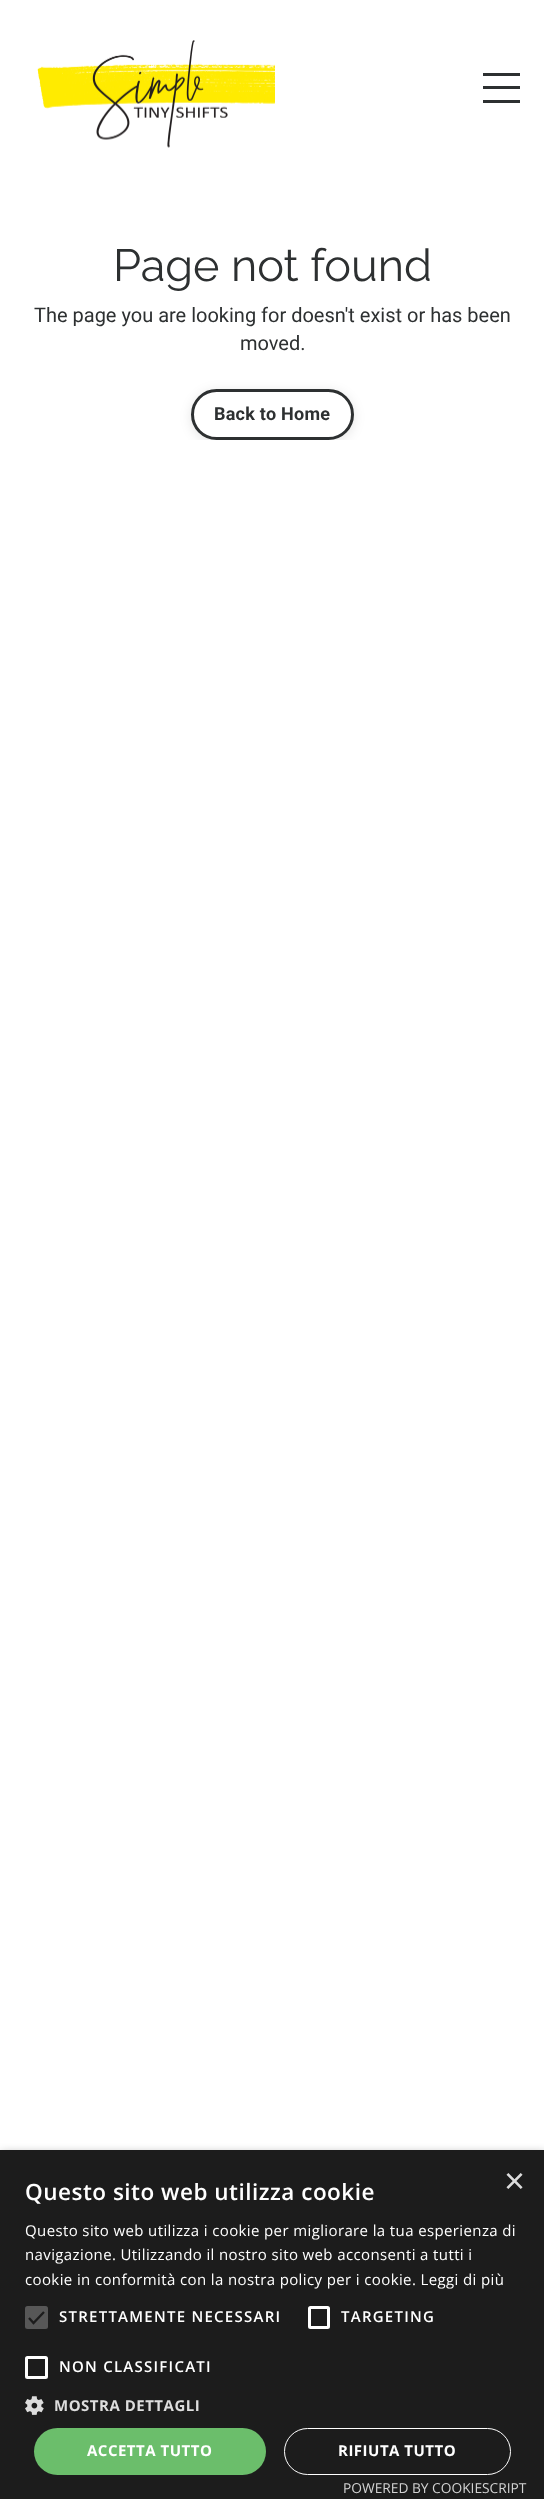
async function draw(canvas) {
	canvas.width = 544;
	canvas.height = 2499;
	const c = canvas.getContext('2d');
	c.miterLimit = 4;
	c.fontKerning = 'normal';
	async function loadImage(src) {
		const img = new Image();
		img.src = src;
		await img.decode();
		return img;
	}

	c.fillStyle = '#fff';
	c.fillRect(0, 0, 544, 2499);
	c.drawImage(await loadImage('img1.png'), 37, 40, 238, 108);
	for (const [x, y, w, h, color] of [
		[483, 73, 37, 3, '#2d3031'],
		[483, 86, 37, 3, '#2d3031'],
		[483, 100, 37, 3, '#2d3031'],
	]) {
		c.fillStyle = color;
		c.fillRect(x, y, w, h);
	}
	c.font = '45px Raleway';
	c.fillText('Page not found', 113, 281);
	c.font = '20px Roboto';
	c.fillText('The page you are looking for doesn\'t exist or has been', 34, 322);
	c.fillText('moved.', 240, 350);
	c.save();
	c.beginPath();
	c.roundRect(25, 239, 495, 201, 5);
	c.clip();
	c.beginPath();
	c.moveTo(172, 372);
	c.lineTo(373, 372);
	c.lineTo(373, 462);
	c.lineTo(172, 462);
	c.closePath();
	c.moveTo(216.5, 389);
	c.lineTo(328.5, 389);
	c.bezierCurveTo(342.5, 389, 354, 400.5, 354, 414.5);
	c.bezierCurveTo(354, 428.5, 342.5, 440, 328.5, 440);
	c.lineTo(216.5, 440);
	c.bezierCurveTo(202.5, 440, 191, 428.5, 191, 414.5);
	c.bezierCurveTo(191, 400.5, 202.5, 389, 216.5, 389);
	c.closePath();
	c.clip('evenodd');
	c.fillStyle = '#0000001a';
	c.filter = 'blur(6px)';
	c.beginPath();
	c.roundRect(191, 391, 163, 52, 26);
	c.fill();
	c.filter = 'none';
	c.restore();
	c.beginPath();
	c.roundRect(192.5, 390.5, 160, 48, 24);
	c.strokeStyle = '#2d3031';
	c.lineWidth = 3;
	c.stroke();
	c.letterSpacing = '0.25px';
	c.font = 'bold 18px Roboto';
	c.fillText('Back to Home', 214, 420);
	c.fillStyle = '#00000059';
	c.filter = 'blur(5px)';
	c.beginPath();
	c.rect(1, 2153, 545, 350);
	c.fill();
	c.filter = 'none';
	c.fillStyle = '#1c1c1c';
	c.fillRect(0, 2150, 544, 349);
	c.letterSpacing = '0px';
	c.font = '36px Liberation Sans';
	c.fillStyle = '#ddd';
	c.fillText('×', 504, 2193);
	c.letterSpacing = '0.5px';
	c.font = '600 22.5px Open Sans';
	c.fillStyle = '#fff';
	c.fillText('Questo sito web utilizza cookie', 25, 2200);
	c.letterSpacing = '0.38px';
	c.font = '15px Open Sans';
	for (const [text, x, y] of [
		['Questo sito web utilizza i cookie per migliorare la tua esperienza di', 25, 2236],
		['navigazione. Utilizzando il nostro sito web acconsenti a tutti i', 25, 2260],
		['cookie in conformità con la nostra policy per i cookie. Leggi di più', 25, 2285],
	]) {
		c.fillText(text, x, y);
	}
	c.fillStyle = '#575757';
	c.beginPath();
	c.roundRect(25, 2306, 23, 23, 2.5);
	c.fill();
	c.beginPath();
	c.moveTo(29, 2318);
	c.lineTo(33.5, 2323);
	c.lineTo(44, 2312);
	c.strokeStyle = '#1c1c1c';
	c.lineWidth = 2.3;
	c.stroke();
	c.letterSpacing = '1.25px';
	c.font = '600 15px Open Sans';
	c.fillStyle = '#fff';
	c.fillText('STRETTAMENTE NECESSARI', 59, 2322);
	c.beginPath();
	c.roundRect(309.5, 2307.5, 19, 20, 1);
	c.strokeStyle = '#fff';
	c.lineWidth = 3;
	c.stroke();
	c.fillText('TARGETING', 341, 2322);
	c.beginPath();
	c.roundRect(26.5, 2357.5, 20, 20, 1);
	c.stroke();
	c.fillText('NON CLASSIFICATI', 59, 2372);
	c.drawImage(await loadImage('img2.png'), 25, 2396, 19, 19);
	c.letterSpacing = '0.5px';
	c.font = 'bold 15px Open Sans';
	c.fillStyle = '#ddd';
	c.fillText('MOSTRA DETTAGLI', 54, 2411);
	c.fillStyle = '#6bbe6b';
	c.beginPath();
	c.roundRect(34, 2428, 232, 47, 23.5);
	c.fill();
	c.fillStyle = '#fff';
	c.fillText('ACCETTA TUTTO', 87, 2456);
	c.beginPath();
	c.roundRect(284.5, 2428.5, 226, 46, 23);
	c.lineWidth = 1;
	c.stroke();
	c.fillText('RIFIUTA TUTTO', 338, 2456);
	c.letterSpacing = '0px';
	c.font = '13.75px Open Sans';
	c.fillStyle = '#d2d2d2';
	c.fillText('POWERED BY COOKIESCRIPT', 343, 2493);
}

draw(document.querySelector('canvas'));
